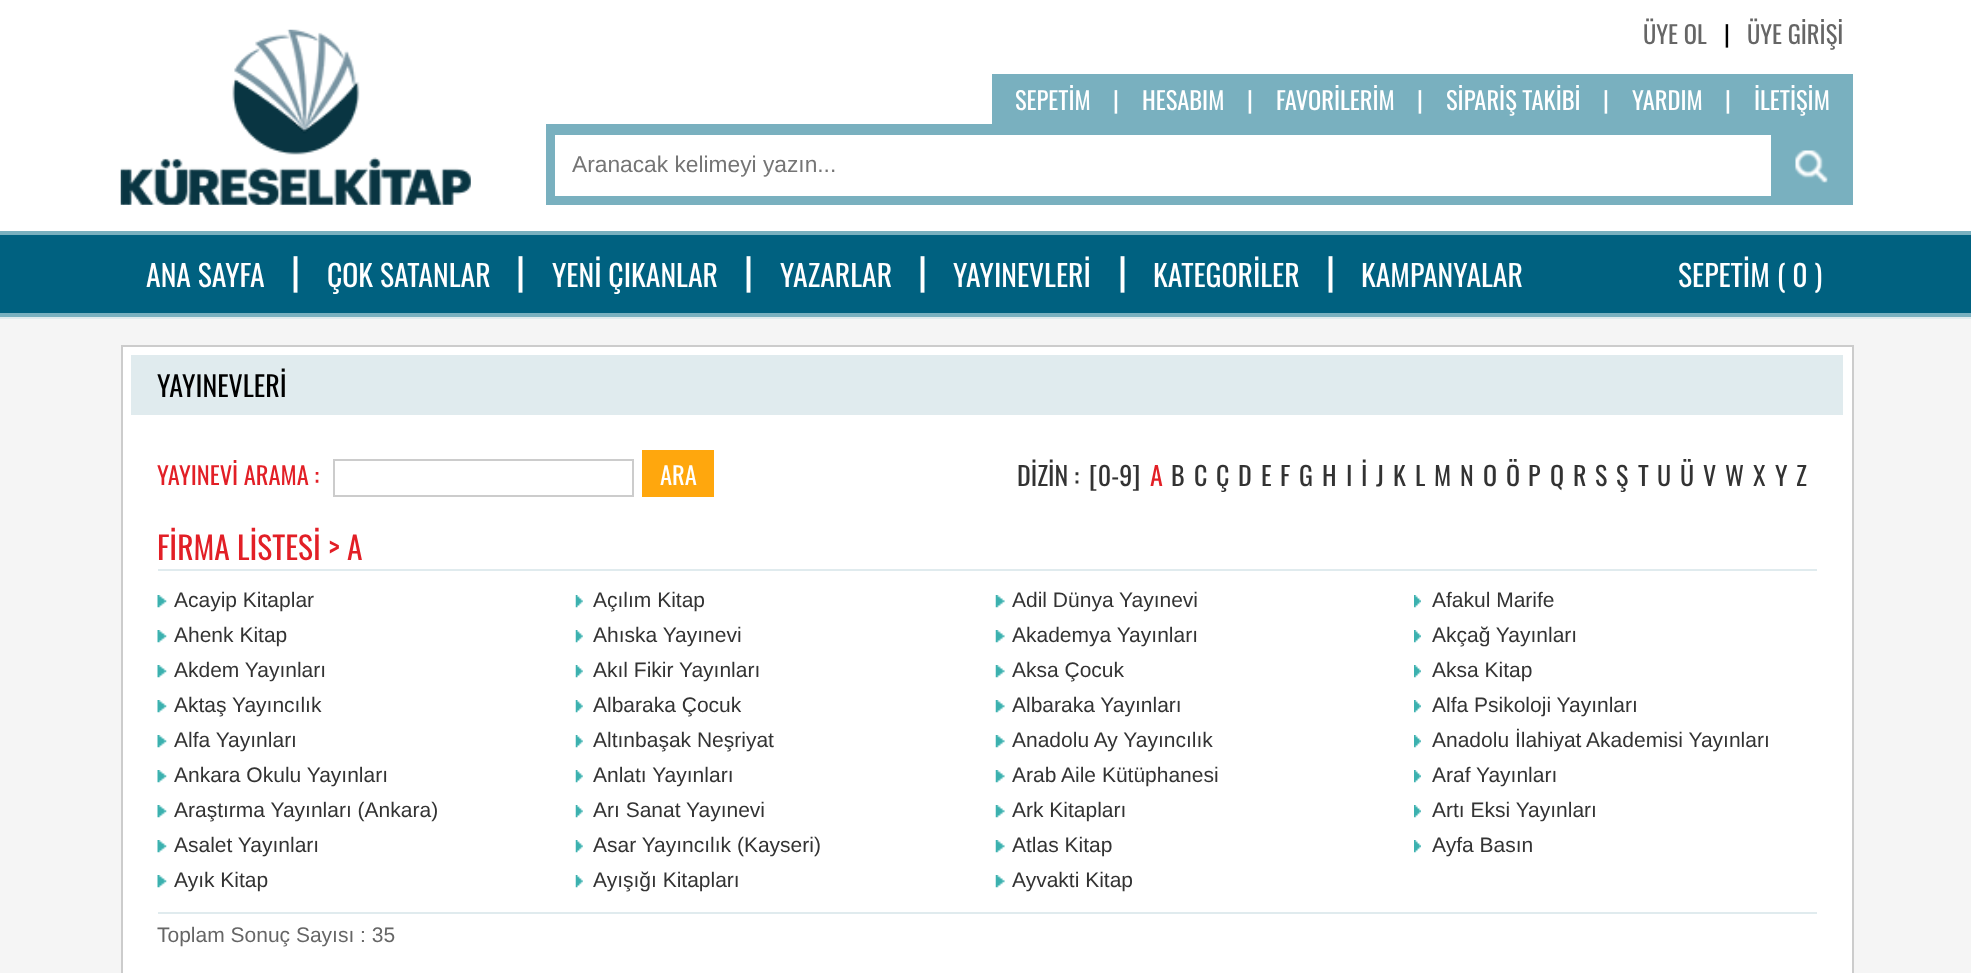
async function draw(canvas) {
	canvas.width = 1971;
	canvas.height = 973;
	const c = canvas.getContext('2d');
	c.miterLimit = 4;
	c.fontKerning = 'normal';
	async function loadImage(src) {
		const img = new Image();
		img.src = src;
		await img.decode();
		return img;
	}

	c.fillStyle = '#f5f5f5';
	c.fillRect(0, 0, 1971, 973);
	c.fillStyle = '#fff';
	c.fillRect(0, 0, 1971, 231);
	c.fillStyle = '#e0ebee';
	c.fillRect(0, 317, 1971, 2);
	c.font = '24.5px Oswald';
	c.fillStyle = '#666';
	c.fillText('ÜYE OL', 1643, 44);
	c.fillStyle = '#000';
	c.fillText('|', 1724, 44);
	c.fillStyle = '#666';
	c.fillText('ÜYE GİRİŞİ', 1747, 44);
	c.drawImage(await loadImage('img1.png'), 120, 29, 351, 176);
	c.fillStyle = '#79b0bf';
	c.fillRect(992, 74, 861, 50);
	c.fillStyle = '#fff';
	for (const [text, x, y] of [
		['SEPETİM', 1015, 110],
		['|', 1113, 110],
		['HESABIM', 1142, 110],
		['|', 1247, 110],
		['FAVORİLERİM', 1276, 110],
		['|', 1417, 110],
		['SİPARİŞ TAKİBİ', 1446, 110],
		['|', 1603, 110],
		['YARDIM', 1632, 110],
		['|', 1725, 110],
		['İLETİŞİM', 1754, 110],
	]) {
		c.fillText(text, x, y);
	}
	c.fillStyle = '#79b0bf';
	c.fillRect(546, 124, 1307, 81);
	c.fillStyle = '#fff';
	c.fillRect(555, 135, 1216, 61);
	c.font = '22.75px Liberation Sans';
	c.fillStyle = '#757575';
	c.fillText('Aranacak kelimeyi yazın...', 572, 172);
	c.drawImage(await loadImage('img2.png'), 1795, 150, 33, 33);
	for (const [x, y, w, h, color] of [
		[0, 235, 1971, 78, '#006180'],
		[0, 231, 1971, 4, '#79b0bf'],
		[0, 313, 1971, 4, '#79b0bf'],
	]) {
		c.fillStyle = color;
		c.fillRect(x, y, w, h);
	}
	c.font = '29.75px Oswald';
	c.fillStyle = '#fff';
	c.fillText('ANA SAYFA', 146, 287);
	c.font = '38px Oswald';
	c.fillText('|', 291, 287);
	c.font = '29.75px Oswald';
	c.fillText('ÇOK SATANLAR', 327, 287);
	c.font = '38px Oswald';
	c.fillText('|', 516, 287);
	c.font = '29.75px Oswald';
	c.fillText('YENİ ÇIKANLAR', 552, 287);
	c.font = '38px Oswald';
	c.fillText('|', 744, 287);
	c.font = '29.75px Oswald';
	c.fillText('YAZARLAR', 780, 287);
	c.font = '38px Oswald';
	c.fillText('|', 918, 287);
	c.font = '29.75px Oswald';
	c.fillText('YAYINEVLERİ', 953, 287);
	c.font = '38px Oswald';
	c.fillText('|', 1118, 287);
	c.font = '29.75px Oswald';
	c.fillText('KATEGORİLER', 1153, 287);
	c.font = '38px Oswald';
	c.fillText('|', 1326, 287);
	c.font = '29.75px Oswald';
	c.fillText('KAMPANYALAR', 1361, 287);
	c.fillText('SEPETİM ( 0 )', 1678, 287);
	for (const [x, y, w, h, color] of [
		[123, 347, 1729, 626, '#fff'],
		[121, 345, 1732, 2, '#ccc'],
		[1852, 345, 2, 628, '#ccc'],
		[121, 345, 2, 628, '#ccc'],
		[131, 355, 1712, 60, '#e0ebee'],
	]) {
		c.fillStyle = color;
		c.fillRect(x, y, w, h);
	}
	c.font = '28px Oswald';
	c.fillStyle = '#000';
	c.fillText('YAYINEVLERİ', 157, 397);
	c.font = '24.5px Oswald';
	c.fillStyle = '#e21f26';
	c.fillText('YAYINEVİ ARAMA :', 157, 485);
	c.strokeStyle = '#ccc';
	c.lineWidth = 2;
	c.strokeRect(334, 460, 299, 36);
	c.fillStyle = '#ffa70d';
	c.fillRect(642, 450, 72, 47);
	c.fillStyle = '#fff';
	c.fillText('ARA', 660, 485);
	c.font = '26px Oswald';
	c.fillStyle = '#333';
	c.fillText('DİZİN :', 1017, 486);
	c.fillText('[0-9]', 1089, 486);
	c.fillStyle = '#e21f26';
	c.fillText('A', 1150, 486);
	c.fillStyle = '#333';
	for (const [text, x, y] of [
		['B', 1171, 486],
		['C', 1194, 486],
		['Ç', 1216, 486],
		['D', 1238, 486],
		['E', 1261, 486],
		['F', 1280, 486],
		['G', 1299, 486],
		['H', 1322, 486],
		['I', 1346, 486],
		['İ', 1361, 486],
		['J', 1376, 486],
		['K', 1393, 486],
		['L', 1415, 486],
		['M', 1434, 486],
		['N', 1460, 486],
		['O', 1483, 486],
		['Ö', 1506, 486],
		['P', 1528, 486],
		['Q', 1550, 486],
		['R', 1573, 486],
		['S', 1595, 486],
		['Ş', 1616, 486],
		['T', 1638, 486],
		['U', 1657, 486],
		['Ü', 1680, 486],
		['V', 1703, 486],
		['W', 1725, 486],
		['X', 1753, 486],
		['Y', 1775, 486],
		['Z', 1796, 486],
	]) {
		c.fillText(text, x, y);
	}
	c.fillStyle = '#e0ebee';
	c.fillRect(158, 569, 1659, 2);
	c.font = '31.5px Oswald';
	c.fillStyle = '#e21f26';
	c.fillText('FİRMA LİSTESİ > A', 157, 560);
	c.drawImage(await loadImage('img3.png'), 157, 595, 10, 13);
	c.font = '21px Liberation Sans';
	c.fillStyle = '#333';
	c.fillText('Acayip Kitaplar', 174, 607);
	c.drawImage(await loadImage('img4.png'), 575, 595, 8, 13);
	c.fillText('Açılım Kitap', 593, 607);
	c.drawImage(await loadImage('img5.png'), 995, 595, 10, 13);
	c.fillText('Adil Dünya Yayınevi', 1012, 607);
	c.drawImage(await loadImage('img6.png'), 1414, 595, 7, 13);
	c.fillText('Afakul Marife', 1432, 607);
	c.drawImage(await loadImage('img3.png'), 157, 630, 10, 13);
	c.fillText('Ahenk Kitap', 174, 642);
	c.drawImage(await loadImage('img4.png'), 575, 630, 8, 13);
	c.fillText('Ahıska Yayınevi', 593, 642);
	c.drawImage(await loadImage('img5.png'), 995, 630, 10, 13);
	c.fillText('Akademya Yayınları', 1012, 642);
	c.drawImage(await loadImage('img6.png'), 1414, 630, 7, 13);
	c.fillText('Akçağ Yayınları', 1432, 642);
	c.drawImage(await loadImage('img3.png'), 157, 665, 10, 13);
	c.fillText('Akdem Yayınları', 174, 677);
	c.drawImage(await loadImage('img4.png'), 575, 665, 8, 13);
	c.fillText('Akıl Fikir Yayınları', 593, 677);
	c.drawImage(await loadImage('img5.png'), 995, 665, 10, 13);
	c.fillText('Aksa Çocuk', 1012, 677);
	c.drawImage(await loadImage('img6.png'), 1414, 665, 7, 13);
	c.fillText('Aksa Kitap', 1432, 677);
	c.drawImage(await loadImage('img3.png'), 157, 700, 10, 13);
	c.fillText('Aktaş Yayıncılık', 174, 712);
	c.drawImage(await loadImage('img4.png'), 575, 700, 8, 13);
	c.fillText('Albaraka Çocuk', 593, 712);
	c.drawImage(await loadImage('img5.png'), 995, 700, 10, 13);
	c.fillText('Albaraka Yayınları', 1012, 712);
	c.drawImage(await loadImage('img6.png'), 1414, 700, 7, 13);
	c.fillText('Alfa Psikoloji Yayınları', 1432, 712);
	c.drawImage(await loadImage('img3.png'), 157, 735, 10, 13);
	c.fillText('Alfa Yayınları', 174, 747);
	c.drawImage(await loadImage('img4.png'), 575, 735, 8, 13);
	c.fillText('Altınbaşak Neşriyat', 593, 747);
	c.drawImage(await loadImage('img5.png'), 995, 735, 10, 13);
	c.fillText('Anadolu Ay Yayıncılık', 1012, 747);
	c.drawImage(await loadImage('img6.png'), 1414, 735, 7, 13);
	c.fillText('Anadolu İlahiyat Akademisi Yayınları', 1432, 747);
	c.drawImage(await loadImage('img3.png'), 157, 770, 10, 13);
	c.fillText('Ankara Okulu Yayınları', 174, 782);
	c.drawImage(await loadImage('img4.png'), 575, 770, 8, 13);
	c.fillText('Anlatı Yayınları', 593, 782);
	c.drawImage(await loadImage('img5.png'), 995, 770, 10, 13);
	c.fillText('Arab Aile Kütüphanesi', 1012, 782);
	c.drawImage(await loadImage('img6.png'), 1414, 770, 7, 13);
	c.fillText('Araf Yayınları', 1432, 782);
	c.drawImage(await loadImage('img3.png'), 157, 805, 10, 13);
	c.fillText('Araştırma Yayınları (Ankara)', 174, 817);
	c.drawImage(await loadImage('img4.png'), 575, 805, 8, 13);
	c.fillText('Arı Sanat Yayınevi', 593, 817);
	c.drawImage(await loadImage('img5.png'), 995, 805, 10, 13);
	c.fillText('Ark Kitapları', 1012, 817);
	c.drawImage(await loadImage('img6.png'), 1414, 805, 7, 13);
	c.fillText('Artı Eksi Yayınları', 1432, 817);
	c.drawImage(await loadImage('img3.png'), 157, 840, 10, 13);
	c.fillText('Asalet Yayınları', 174, 852);
	c.drawImage(await loadImage('img4.png'), 575, 840, 8, 13);
	c.fillText('Asar Yayıncılık (Kayseri)', 593, 852);
	c.drawImage(await loadImage('img5.png'), 995, 840, 10, 13);
	c.fillText('Atlas Kitap', 1012, 852);
	c.drawImage(await loadImage('img6.png'), 1414, 840, 7, 13);
	c.fillText('Ayfa Basın', 1432, 852);
	c.drawImage(await loadImage('img3.png'), 157, 875, 10, 13);
	c.fillText('Ayık Kitap', 174, 887);
	c.drawImage(await loadImage('img4.png'), 575, 875, 8, 13);
	c.fillText('Ayışığı Kitapları', 593, 887);
	c.drawImage(await loadImage('img5.png'), 995, 875, 10, 13);
	c.fillText('Ayvakti Kitap', 1012, 887);
	c.fillStyle = '#e0ebee';
	c.fillRect(158, 912, 1659, 2);
	c.fillStyle = '#666';
	c.fillText('Toplam Sonuç Sayısı : 35', 157, 942);
}

draw(document.querySelector('canvas'));
